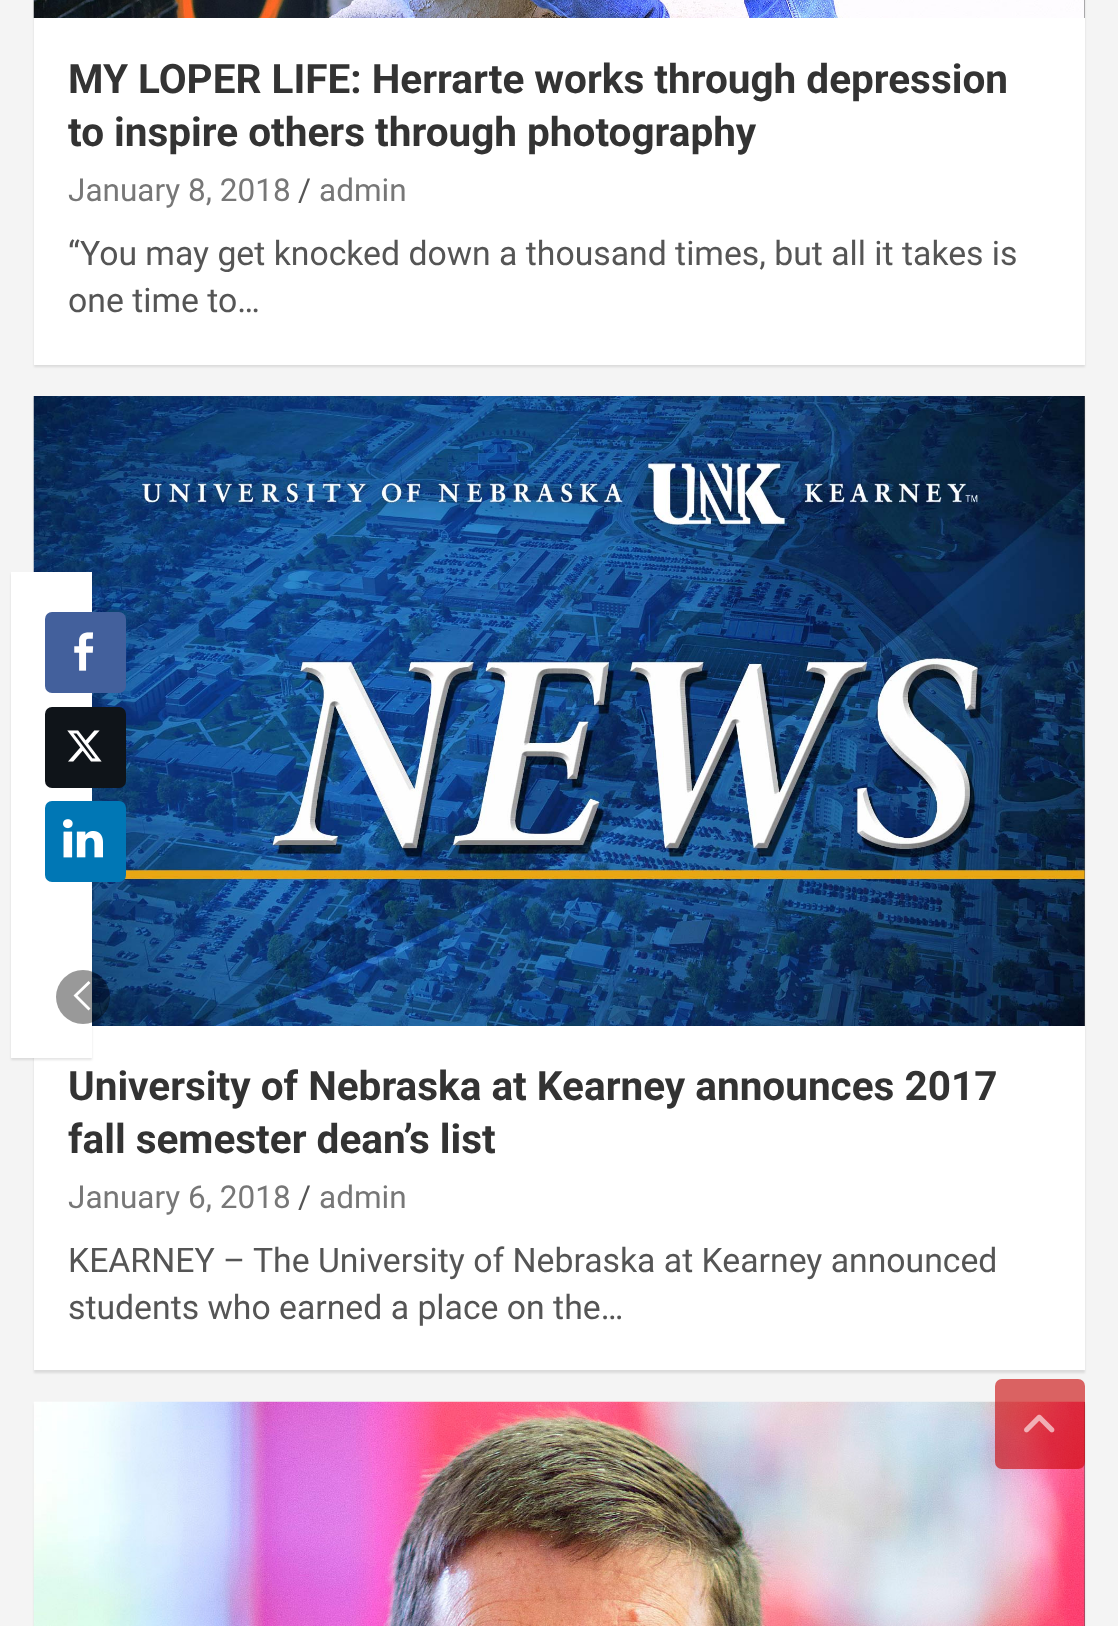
async function draw(canvas) {
	canvas.width = 1118;
	canvas.height = 1626;
	const c = canvas.getContext('2d');
	c.miterLimit = 4;
	c.fontKerning = 'normal';
	async function loadImage(src) {
		const img = new Image();
		img.src = src;
		await img.decode();
		return img;
	}

	c.fillStyle = '#f4f4f4';
	c.fillRect(0, 0, 1118, 1626);
	c.fillStyle = '#0000001a';
	c.filter = 'blur(1px)';
	c.beginPath();
	c.rect(34, 398, 1051, 975);
	c.fill();
	c.filter = 'none';
	c.fillStyle = '#fff';
	c.fillRect(34, 1026, 1051, 344);
	c.fillStyle = '#555';
	c.fillRect(1084, 396, 1, 630);
	c.drawImage(await loadImage('img5.png'), 33, 396, 1052, 630);
	c.fillStyle = '#0000001a';
	c.filter = 'blur(1px)';
	c.beginPath();
	c.rect(11, 574, 81, 486);
	c.fill();
	c.filter = 'none';
	c.fillStyle = '#fff';
	c.fillRect(11, 572, 81, 486);
	c.fillStyle = '#43609c';
	c.beginPath();
	c.roundRect(45, 612, 81, 81, 7);
	c.fill();
	c.drawImage(await loadImage('img1.png'), 74, 632, 20, 39);
	c.fillStyle = '#0f1419';
	c.beginPath();
	c.roundRect(45, 707, 81, 81, 7);
	c.fill();
	c.drawImage(await loadImage('img2.png'), 67, 730, 35, 32);
	c.fillStyle = '#0077b5';
	c.beginPath();
	c.roundRect(45, 801, 81, 81, 7);
	c.fill();
	c.drawImage(await loadImage('img3.png'), 63, 819, 40, 39);
	c.fillStyle = '#00000066';
	c.beginPath();
	c.arc(83, 997, 27, 0, 2 * Math.PI);
	c.fill();
	c.fillStyle = '#fff';
	c.beginPath();
	c.moveTo(90.5, 983);
	c.lineTo(88.5, 981);
	c.lineTo(73.5, 995.5);
	c.lineTo(88.5, 1010.5);
	c.lineTo(90.5, 1008.5);
	c.lineTo(77.5, 995.5);
	c.fill();
	c.fillStyle = '#0000001a';
	c.filter = 'blur(1px)';
	c.beginPath();
	c.rect(34, -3, 1051, 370);
	c.fill();
	c.filter = 'none';
	c.fillStyle = '#fff';
	c.fillRect(34, 18, 1051, 347);
	c.fillStyle = '#555';
	c.fillRect(1084, 0, 1, 18);
	c.drawImage(await loadImage('img4.png'), 33, 0, 1052, 18);
	c.font = 'bold 40.5px Roboto';
	c.fillStyle = '#333';
	c.fillText('MY LOPER LIFE: Herrarte works through depression', 68, 93);
	c.fillText('to inspire others through photography', 68, 146);
	c.font = '31.5px Roboto';
	c.fillStyle = '#777';
	c.fillText('January 8, 2018', 68, 201);
	c.fillStyle = '#555';
	c.fillText('/', 298, 201);
	c.fillStyle = '#777';
	c.fillText('admin', 319, 201);
	c.font = '33.75px Roboto';
	c.fillStyle = '#555';
	c.fillText('“You may get knocked down a thousand times, but all it takes is', 68, 265);
	c.fillText('one time to…', 68, 312);
	c.font = 'bold 40.5px Roboto';
	c.fillStyle = '#333';
	c.fillText('University of Nebraska at Kearney announces 2017', 68, 1100);
	c.fillText('fall semester dean’s list', 68, 1153);
	c.font = '31.5px Roboto';
	c.fillStyle = '#777';
	c.fillText('January 6, 2018', 68, 1208);
	c.fillStyle = '#555';
	c.fillText('/', 298, 1208);
	c.fillStyle = '#777';
	c.fillText('admin', 319, 1208);
	c.font = '33.75px Roboto';
	c.fillStyle = '#555';
	c.fillText('KEARNEY – The University of Nebraska at Kearney announced', 68, 1272);
	c.fillText('students who earned a place on the…', 68, 1319);
	c.fillStyle = '#0000001a';
	c.filter = 'blur(1px)';
	c.beginPath();
	c.rect(34, 1404, 1051, 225);
	c.fill();
	c.filter = 'none';
	c.fillStyle = '#555';
	c.fillRect(1084, 1402, 1, 224);
	c.drawImage(await loadImage('img6.png'), 33, 1401, 1052, 225);
	c.fillStyle = '#c8000099';
	c.beginPath();
	c.roundRect(995, 1379, 90, 90, 7);
	c.fill();
	c.drawImage(await loadImage('img7.png'), 1024, 1414, 31, 19);
}

draw(document.querySelector('canvas'));
